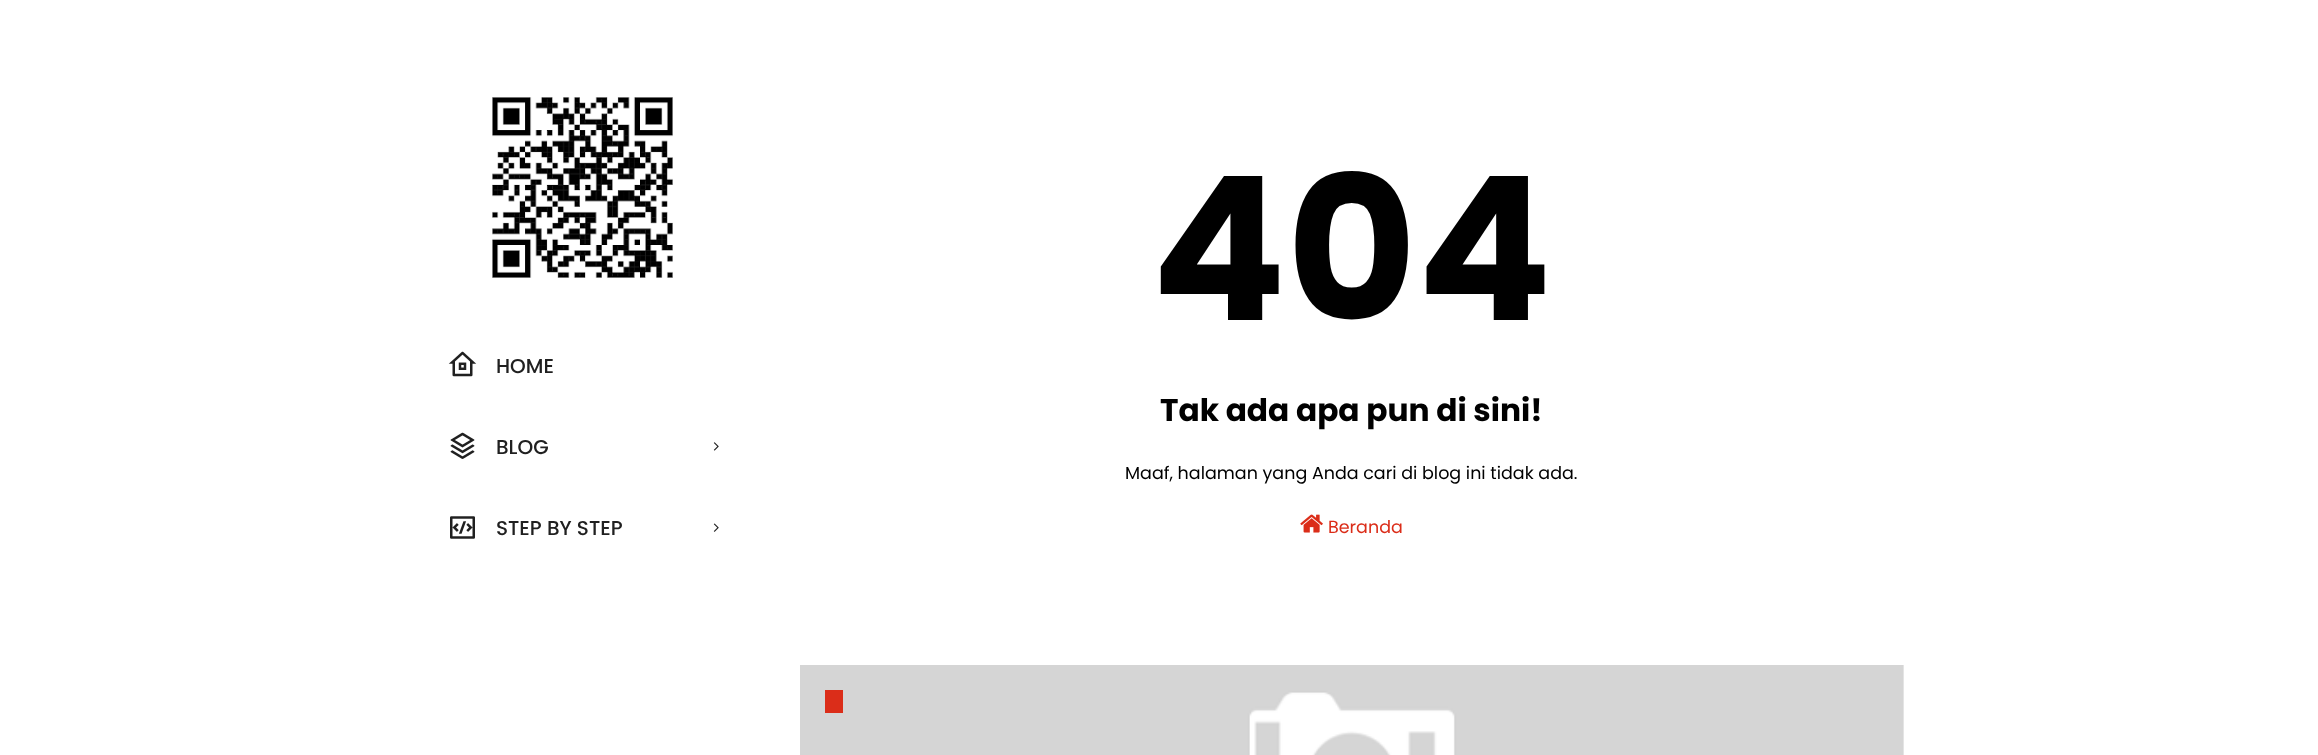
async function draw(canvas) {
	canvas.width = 2318;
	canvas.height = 755;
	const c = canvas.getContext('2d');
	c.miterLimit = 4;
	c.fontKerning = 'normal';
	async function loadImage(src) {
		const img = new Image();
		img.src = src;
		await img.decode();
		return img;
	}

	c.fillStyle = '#fff';
	c.fillRect(0, 0, 2318, 755);
	c.drawImage(await loadImage('img1.png'), 492, 97, 181, 181);
	c.drawImage(await loadImage('img2.png'), 448, 351, 29, 26);
	c.font = '500 20px Poppins';
	c.fillStyle = '#202020';
	c.fillText('HOME', 496, 373);
	c.drawImage(await loadImage('img3.png'), 450, 432, 25, 27);
	c.fillText('BLOG', 496, 454);
	c.drawImage(await loadImage('img4.png'), 713, 442, 6, 9);
	c.drawImage(await loadImage('img5.png'), 450, 516, 25, 23);
	c.fillText('STEP BY STEP', 496, 535);
	c.drawImage(await loadImage('img6.png'), 713, 523, 6, 9);
	c.font = 'bold 200px Poppins';
	c.fillStyle = '#000';
	c.fillText('404', 1151, 320);
	c.font = 'bold 31.25px Poppins';
	c.fillText('Tak ada apa pun di sini!', 1160, 421);
	c.font = '17.5px Poppins';
	c.fillText('Maaf, halaman yang Anda cari di blog ini tidak ada.', 1125, 479);
	c.drawImage(await loadImage('img7.png'), 1300, 514, 23, 19);
	c.fillStyle = '#db2d19';
	c.fillText('Beranda', 1328, 533);
	c.fillStyle = '#f8f8f8';
	c.fillRect(1903, 665, 1, 90);
	c.drawImage(await loadImage('img8.png'), 800, 665, 1104, 90);
	c.fillStyle = '#db2d19';
	c.fillRect(825, 690, 18, 23);
}

draw(document.querySelector('canvas'));
